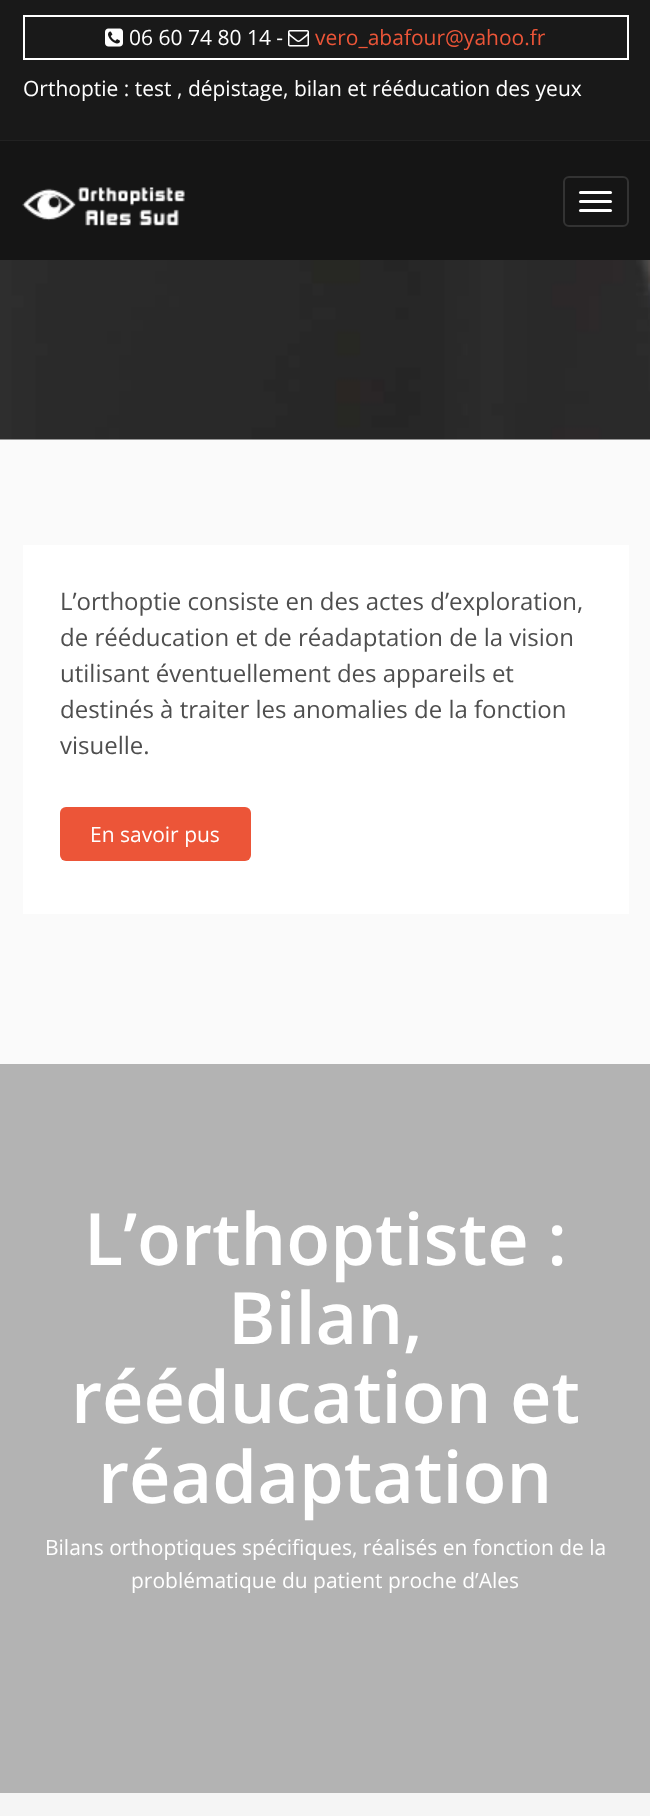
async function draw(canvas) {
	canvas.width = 650;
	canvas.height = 1816;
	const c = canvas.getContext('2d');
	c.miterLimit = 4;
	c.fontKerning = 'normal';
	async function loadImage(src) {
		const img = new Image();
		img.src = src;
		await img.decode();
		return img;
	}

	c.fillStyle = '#fff';
	c.fillRect(0, 0, 650, 1816);
	c.fillStyle = '#191919';
	c.fillRect(0, 0, 650, 140);
	c.fillStyle = '#222';
	c.fillRect(0, 140, 650, 1);
	c.strokeStyle = '#fff';
	c.lineWidth = 2;
	c.strokeRect(24, 16, 604, 43);
	c.drawImage(await loadImage('img1.png'), 105, 28, 18, 19);
	c.font = '21px Open Sans';
	c.fillStyle = '#fff';
	c.fillText('06 60 74 80 14 -', 129, 45);
	c.drawImage(await loadImage('img2.png'), 288, 30, 21, 17);
	c.fillStyle = '#ec5538';
	c.fillText('vero_abafour@yahoo.fr', 315, 45);
	c.fillStyle = '#fff';
	c.fillText('Orthoptie : test , dépistage, bilan et rééducation des yeux', 23, 96);
	c.fillStyle = '#151515';
	c.fillRect(0, 141, 650, 119);
	c.drawImage(await loadImage('img3.png'), 22, 187, 163, 39);
	c.beginPath();
	c.roundRect(564, 177, 64, 49, 5);
	c.strokeStyle = '#333';
	c.stroke();
	c.fillStyle = '#fff';
	c.beginPath();
	c.roundRect(579, 191, 33, 3, 1.5);
	c.fill();
	c.beginPath();
	c.roundRect(579, 200, 33, 3, 1.5);
	c.fill();
	c.beginPath();
	c.roundRect(579, 209, 33, 3, 1.5);
	c.fill();
	c.drawImage(await loadImage('img4.png'), 0, 260, 650, 180);
	c.fillStyle = '#fafafa';
	c.fillRect(0, 440, 650, 624);
	c.fillStyle = '#fff';
	c.fillRect(23, 545, 606, 369);
	c.font = '24px Open Sans';
	c.fillStyle = '#4e4e4e';
	for (const [text, x, y] of [
		['L’orthoptie consiste en des actes d’exploration,', 60, 610],
		['de rééducation et de réadaptation de la vision', 60, 646],
		['utilisant éventuellement des appareils et', 60, 682],
		['destinés à traiter les anomalies de la fonction', 60, 718],
		['visuelle.', 60, 754],
	]) {
		c.fillText(text, x, y);
	}
	c.fillStyle = '#ec5538';
	c.beginPath();
	c.roundRect(60, 807, 191, 54, 6);
	c.fill();
	c.font = '21px Open Sans';
	c.fillStyle = '#fff';
	c.fillText('En savoir pus', 90, 842);
	c.fillStyle = '#b3b3b3';
	c.fillRect(0, 1064, 650, 729);
	c.font = '600 72px Open Sans';
	c.fillStyle = '#fff';
	for (const [text, x, y] of [
		['L’orthoptiste :', 84, 1265],
		['Bilan,', 228, 1344],
		['rééducation et', 71, 1423],
		['réadaptation', 98, 1503],
	]) {
		c.fillText(text, x, y);
	}
	c.font = '21px Open Sans';
	c.fillText('Bilans orthoptiques spécifiques, réalisés en fonction de la', 45, 1555);
	c.fillText('problématique du patient proche d’Ales', 131, 1588);
	c.fillStyle = '#f5f5f5';
	c.fillRect(0, 1793, 650, 23);
}

draw(document.querySelector('canvas'));
